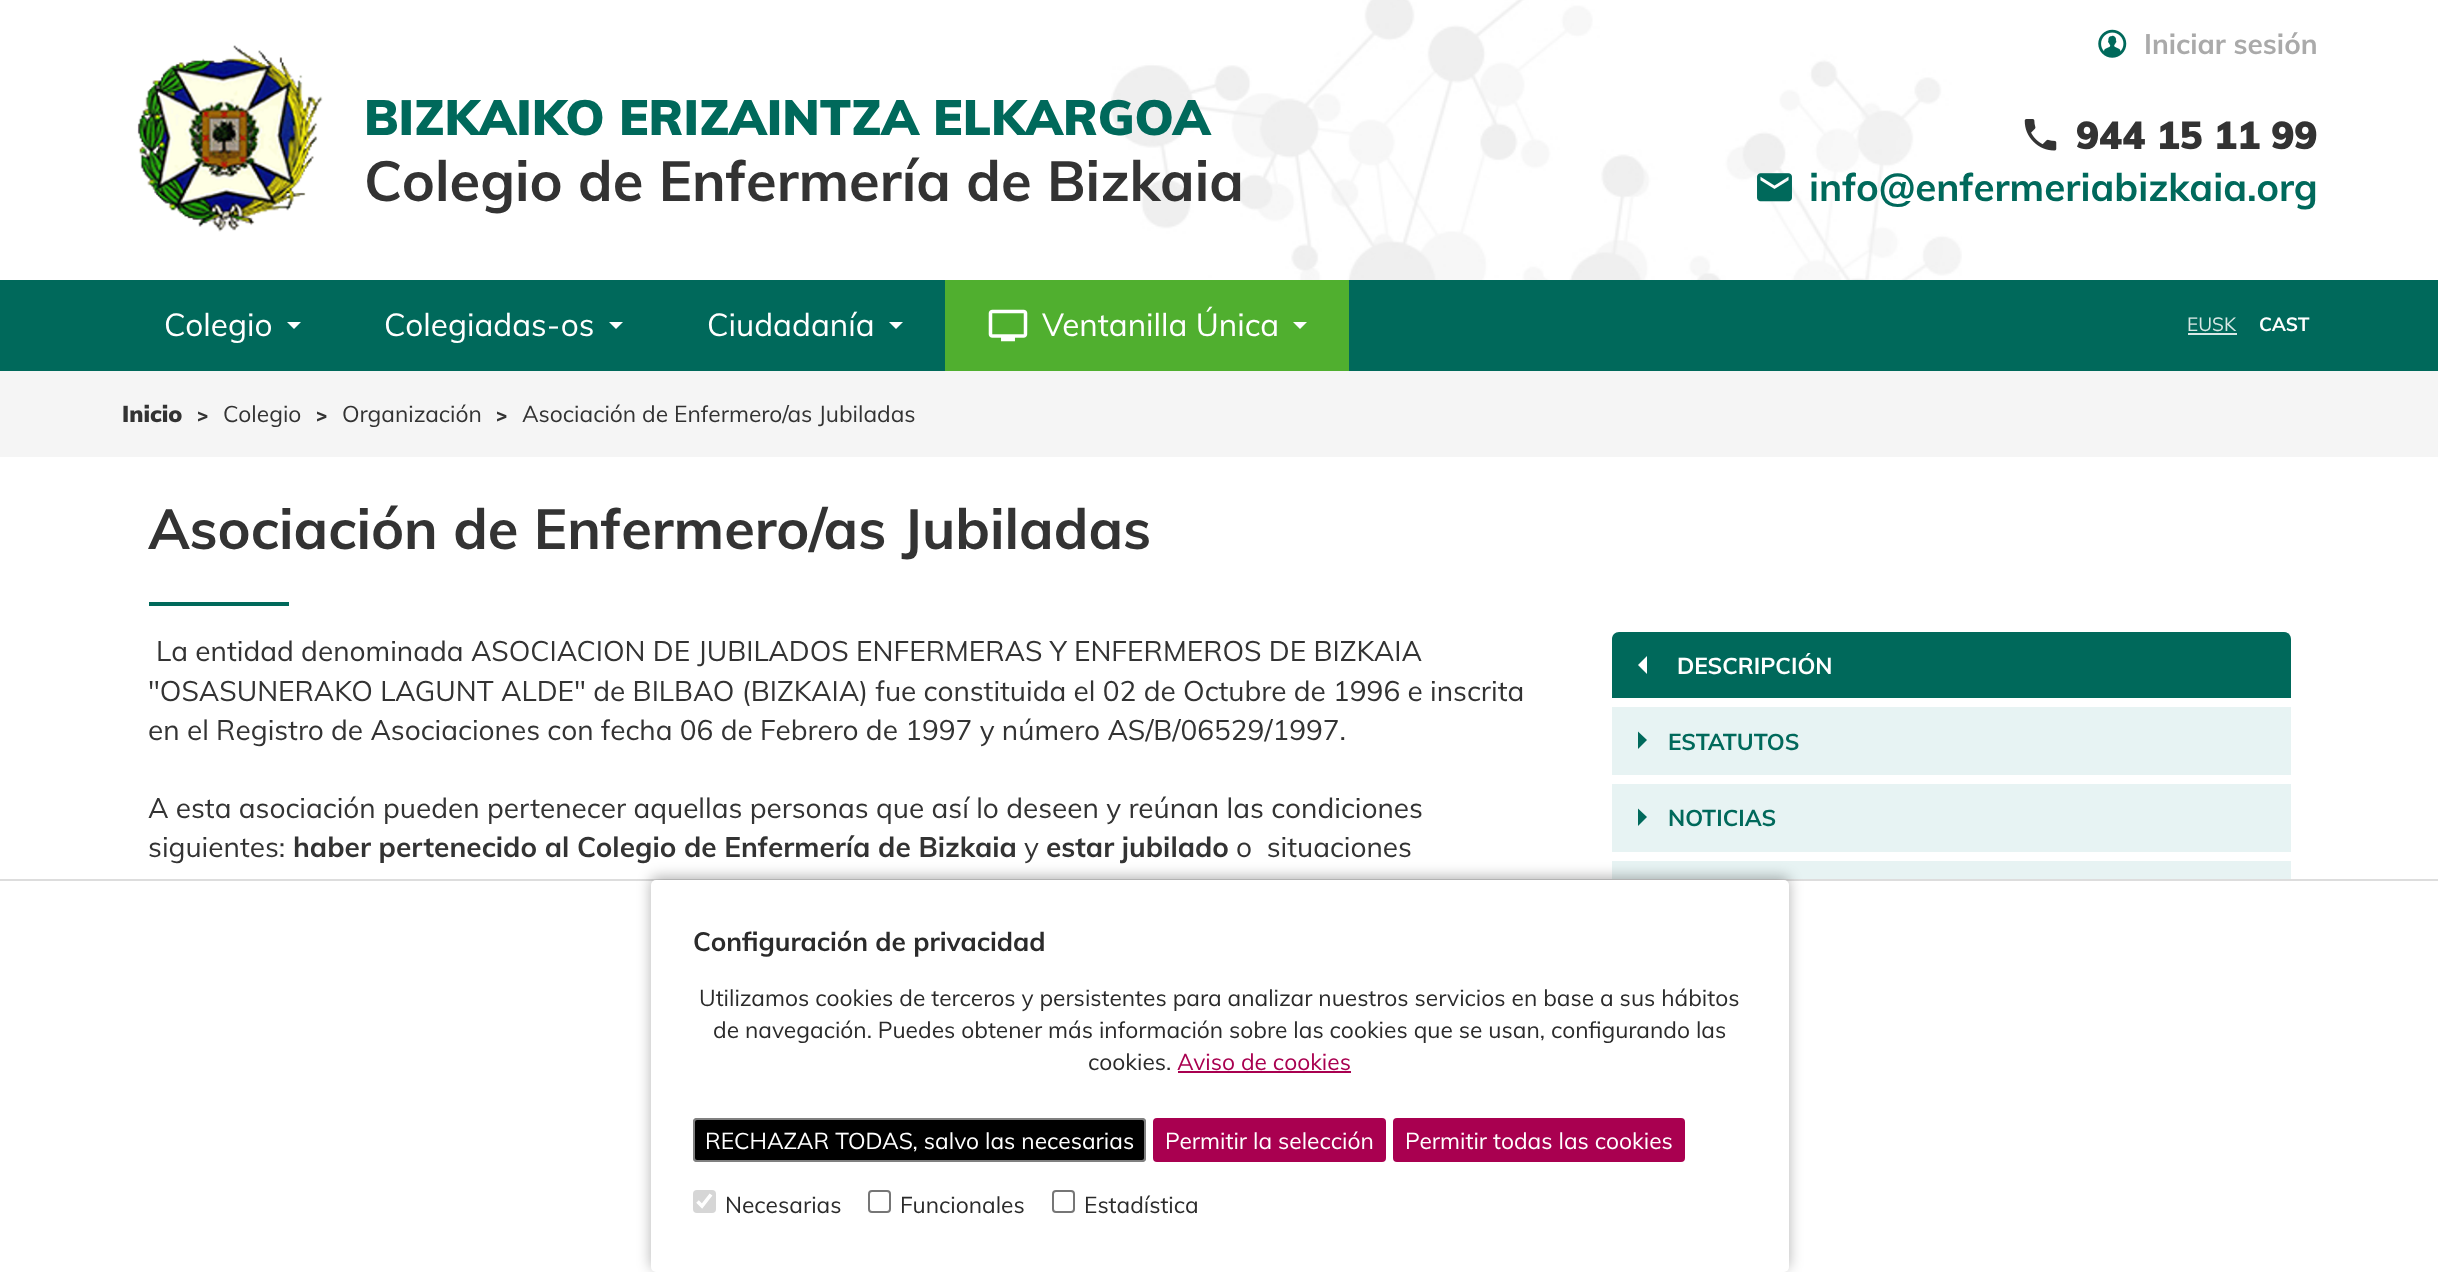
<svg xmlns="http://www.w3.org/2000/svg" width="2438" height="1272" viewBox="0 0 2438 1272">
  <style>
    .t1 { font: bold 28px Muli; fill: #aaa; }
    .t2 { font: 900 49px Muli; fill: #00695b; }
    .t3 { font: bold 56px Muli; fill: #333; }
    .t4 { font: 900 38.5px Muli; fill: #333; }
    .t5 { font: bold 38.5px Muli; fill: #00695b; }
    .t6 { font: 31.5px Muli; fill: #fff; }
    .t7 { font: 19px Muli; fill: #d9e9e6; }
    .t8 { font: bold 19px Muli; fill: #fff; }
    .t9 { font: 900 22.75px Muli; fill: #333; }
    .t10 { font: 900 19px Muli; fill: #333; }
    .t11 { font: 22.75px Muli; fill: #333; }
    .t12 { font: 28px Muli; fill: #333; }
    .t13 { font: bold 28px Muli; fill: #333; }
    .t14 { font: bold 22.75px Muli; fill: #fff; }
    .t15 { font: bold 22.75px Muli; fill: #00695b; }
    .t16 { font: bold 26.25px Muli; fill: #2b2b2b; }
    .t17 { font: 22.75px Muli; fill: #2b2b2b; }
    .t18 { font: 22.75px Muli; fill: #a90050; }
    .t19 { font: 22.75px Muli; fill: #fff; }
  </style>
  <rect width="100%" height="100%" fill="#fff"/>
  <image x="2098" y="29" width="29" height="29" href="images/1.png"/>
  <text x="2144" y="54" class="t1">Iniciar sesión</text>
  <image x="1111" y="0" width="851" height="280" href="images/2.png"/>
  <image x="137" y="45" width="186" height="187" href="images/3.png"/>
  <text x="364" y="135" class="t2">BIZKAIKO ERIZAINTZA ELKARGOA</text>
  <text x="364" y="201" class="t3">Colegio de Enfermería de Bizkaia</text>
  <image x="2024" y="119" width="33" height="32" href="images/4.png"/>
  <text x="2076" y="149" class="t4">944 15 11 99</text>
  <image x="1757" y="173" width="35" height="29" href="images/5.png"/>
  <text x="1809" y="201" class="t5">info@enfermeriabizkaia.org</text>
  <rect x="0" y="280" width="2438" height="91" fill="#00695b"/>
  <text x="164" y="336" class="t6">Colegio</text>
  <path d="M287 322H301L294 329Z" fill="#fff"/>
  <text x="384" y="336" class="t6">Colegiadas-os</text>
  <path d="M609 322H623L616 329Z" fill="#fff"/>
  <text x="707" y="336" class="t6">Ciudadanía</text>
  <path d="M889 322H903L896 329Z" fill="#fff"/>
  <rect x="945" y="280" width="404" height="91" fill="#50af2f"/>
  <image x="988" y="309" width="40" height="33" href="images/6.png"/>
  <text x="1042" y="336" class="t6">Ventanilla Única</text>
  <path d="M1293 322H1307L1300 329Z" fill="#fff"/>
  <text x="2187" y="331" class="t7">EUSK</text>
  <rect x="2188" y="333" width="49" height="2" fill="#d9e9e6"/>
  <text x="2259" y="331" class="t8">CAST</text>
  <rect x="0" y="371" width="2438" height="86" fill="#f5f5f5"/>
  <text x="122" y="422" class="t9">Inicio</text>
  <text x="197" y="422" class="t10">&gt;</text>
  <text x="223" y="422" class="t11">Colegio</text>
  <text x="316" y="422" class="t10">&gt;</text>
  <text x="342" y="422" class="t11">Organización</text>
  <text x="496" y="422" class="t10">&gt;</text>
  <text x="522" y="422" class="t11">Asociación de Enfermero/as Jubiladas</text>
  <text x="148" y="549" class="t3">Asociación de Enfermero/as Jubiladas</text>
  <rect x="149" y="602" width="140" height="4" fill="#00695b"/>
  <text x="156" y="661" class="t12">La entidad denominada ASOCIACION DE JUBILADOS ENFERMERAS Y ENFERMEROS DE BIZKAIA</text>
  <text x="148" y="701" class="t12">"OSASUNERAKO LAGUNT ALDE" de BILBAO (BIZKAIA) fue constituida el 02 de Octubre de 1996 e inscrita</text>
  <text x="148" y="740" class="t12">en el Registro de Asociaciones con fecha 06 de Febrero de 1997 y número AS/B/06529/1997.</text>
  <text x="148" y="818" class="t12">A esta asociación pueden pertenecer aquellas personas que así lo deseen y reúnan las condiciones</text>
  <text x="148" y="857" class="t12">siguientes:</text>
  <text x="293" y="857" class="t13">haber pertenecido al Colegio de Enfermería de Bizkaia</text>
  <text x="1024" y="857" class="t12">y</text>
  <text x="1046" y="857" class="t13">estar jubilado</text>
  <text x="1236" y="857" class="t12" xml:space="preserve">o  situaciones</text>
  <path d="M1619 632H2284C2288 632 2291 635 2291 639V698H1612V639C1612 635 1615 632 1619 632Z" fill="#00695b"/>
  <path d="M1647 656V674L1638 665Z" fill="#fff"/>
  <text x="1677" y="674" class="t14">DESCRIPCIÓN</text>
  <rect x="1612" y="707" width="679" height="68" fill="#e7f3f3"/>
  <path d="M1638 749V731.5L1647 740Z" fill="#00695b"/>
  <text x="1668" y="750" class="t15">ESTATUTOS</text>
  <rect x="1612" y="784" width="679" height="68" fill="#e7f3f3"/>
  <path d="M1638 826V808.5L1647 817Z" fill="#00695b"/>
  <text x="1668" y="826" class="t15">NOTICIAS</text>
  <rect x="1612" y="861" width="679" height="18" fill="#e7f3f3"/>
  <rect x="0" y="879" width="2438" height="2" fill="#ddd"/>
  <rect x="651" y="877" width="1138" height="392" rx="5" fill="#0000004d" filter="blur(7px)"/>
  <rect x="651" y="880" width="1138" height="392" rx="5" fill="#fff"/>
  <text x="693" y="951" class="t16">Configuración de privacidad</text>
  <text x="699" y="1006" class="t17">Utilizamos cookies de terceros y persistentes para analizar nuestros servicios en base a sus hábitos</text>
  <text x="713" y="1038" class="t17">de navegación. Puedes obtener más información sobre las cookies que se usan, configurando las</text>
  <text x="1088" y="1070" class="t17">cookies.</text>
  <text x="1177" y="1070" class="t18">Aviso de cookies</text>
  <rect x="1178" y="1071" width="173" height="2" fill="#a90050"/>
  <rect x="693" y="1118" width="453" height="44" rx="4" fill="#000"/>
  <rect x="694" y="1119" width="451" height="42" rx="3" fill="none" stroke="#ffffff80" stroke-width="2"/>
  <text x="705" y="1149" class="t19">RECHAZAR TODAS, salvo las necesarias</text>
  <rect x="1154" y="1119" width="231" height="42" rx="3" fill="#a90050" stroke="#a90050" stroke-width="2"/>
  <text x="1165" y="1149" class="t19">Permitir la selección</text>
  <rect x="1394" y="1119" width="290" height="42" rx="3" fill="#a90050" stroke="#a90050" stroke-width="2"/>
  <text x="1405" y="1149" class="t19">Permitir todas las cookies</text>
  <rect x="693" y="1190" width="23" height="23" rx="4" fill="#d6d6d6"/>
  <path d="M697.5 1201.5L702 1206L711 1194.5" fill="none" stroke="#fff" stroke-width="3.6"/>
  <text x="725" y="1213" class="t17">Necesarias</text>
  <rect x="869" y="1191" width="21" height="21" rx="3" fill="none" stroke="#767676" stroke-width="2"/>
  <text x="900" y="1213" class="t17">Funcionales</text>
  <rect x="1053" y="1191" width="21" height="21" rx="3" fill="none" stroke="#767676" stroke-width="2"/>
  <text x="1084" y="1213" class="t17">Estadística</text>
</svg>
